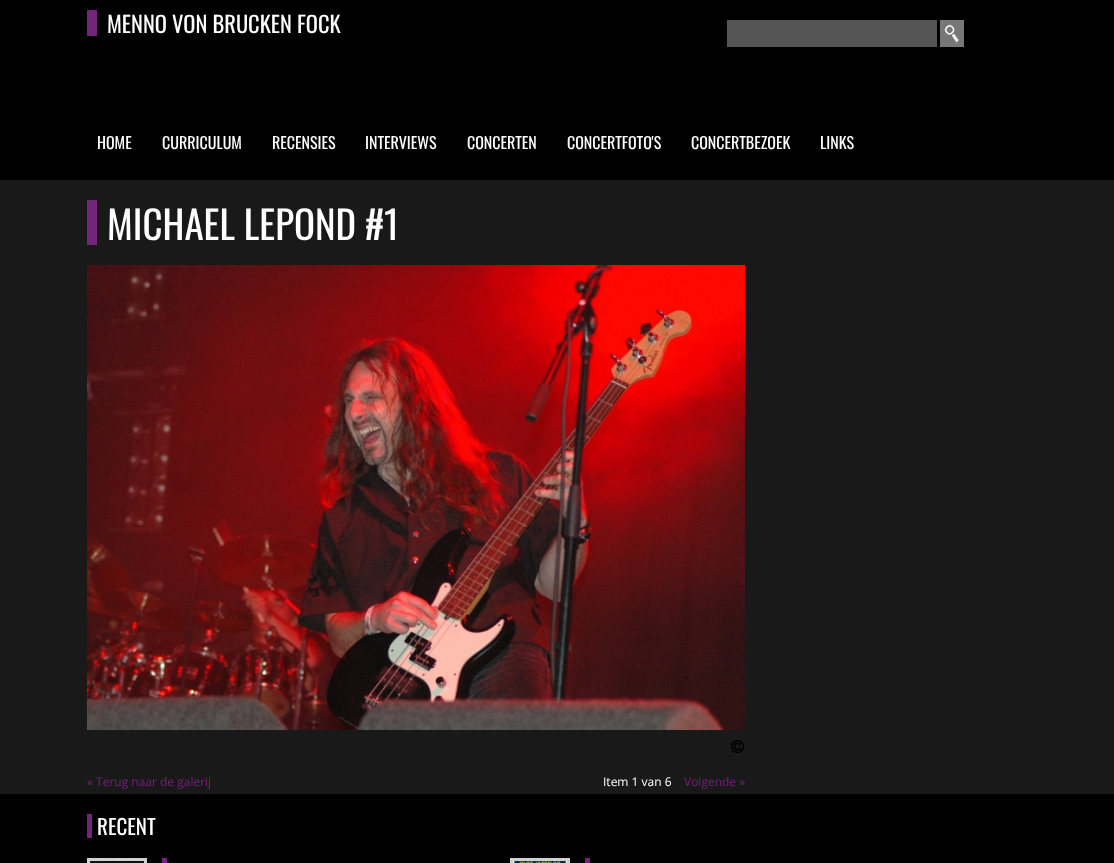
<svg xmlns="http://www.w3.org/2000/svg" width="1114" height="863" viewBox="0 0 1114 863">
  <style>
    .t1 { font: 22.5px Oswald; fill: #fff; }
    .t2 { font: 16px Oswald; fill: #fff; }
    .t3 { font: 39px Oswald; fill: #fff; }
    .t4 { font: 12px Open Sans; fill: #76207e; }
    .t5 { font: 12px Open Sans; fill: #fff; }
    .t6 { font: 21px Oswald; fill: #fff; }
  </style>
  <rect width="100%" height="100%" fill="#191919"/>
  <rect x="0" y="0" width="1114" height="180" fill="#000"/>
  <rect x="87" y="10" width="10" height="26" fill="#74247b"/>
  <text x="107" y="33" class="t1">MENNO VON BRUCKEN FOCK</text>
  <rect x="727" y="20" width="210" height="27" fill="#555"/>
  <rect x="940" y="20" width="24" height="27" fill="#777"/>
  <image x="943" y="24" width="16" height="20" href="images/1.png"/>
  <text x="97" y="149" class="t2">HOME</text>
  <text x="162" y="149" class="t2">CURRICULUM</text>
  <text x="272" y="149" class="t2">RECENSIES</text>
  <text x="365" y="149" class="t2">INTERVIEWS</text>
  <text x="467" y="149" class="t2">CONCERTEN</text>
  <text x="567" y="149" class="t2">CONCERTFOTO'S</text>
  <text x="691" y="149" class="t2">CONCERTBEZOEK</text>
  <text x="820" y="149" class="t2">LINKS</text>
  <rect x="87" y="200" width="10" height="45" fill="#74247b"/>
  <text x="107" y="240" class="t3">MICHAEL LEPOND #1</text>
  <image x="87" y="265" width="658" height="465" href="images/2.png"/>
  <image x="731" y="740" width="13" height="13" href="images/3.png"/>
  <text x="87" y="786" class="t4">« Terug naar de galerij</text>
  <text x="603" y="786" class="t5">Item 1 van 6</text>
  <text x="684" y="786" class="t4">Volgende »</text>
  <rect x="0" y="794" width="1114" height="69" fill="#000"/>
  <rect x="87" y="814" width="5" height="24" fill="#74247b"/>
  <text x="97" y="835" class="t6">RECENT</text>
  <rect x="88.5" y="859.5" width="57" height="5" fill="none" stroke="#d1d1d1" stroke-width="3"/>
  <image x="90" y="861" width="54" height="2" href="images/4.png"/>
  <rect x="162" y="858" width="5" height="5" fill="#74247b"/>
  <rect x="511.5" y="859.5" width="57" height="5" fill="none" stroke="#d1d1d1" stroke-width="3"/>
  <image x="513" y="861" width="54" height="2" href="images/5.png"/>
  <rect x="585" y="858" width="5" height="5" fill="#74247b"/>
</svg>
